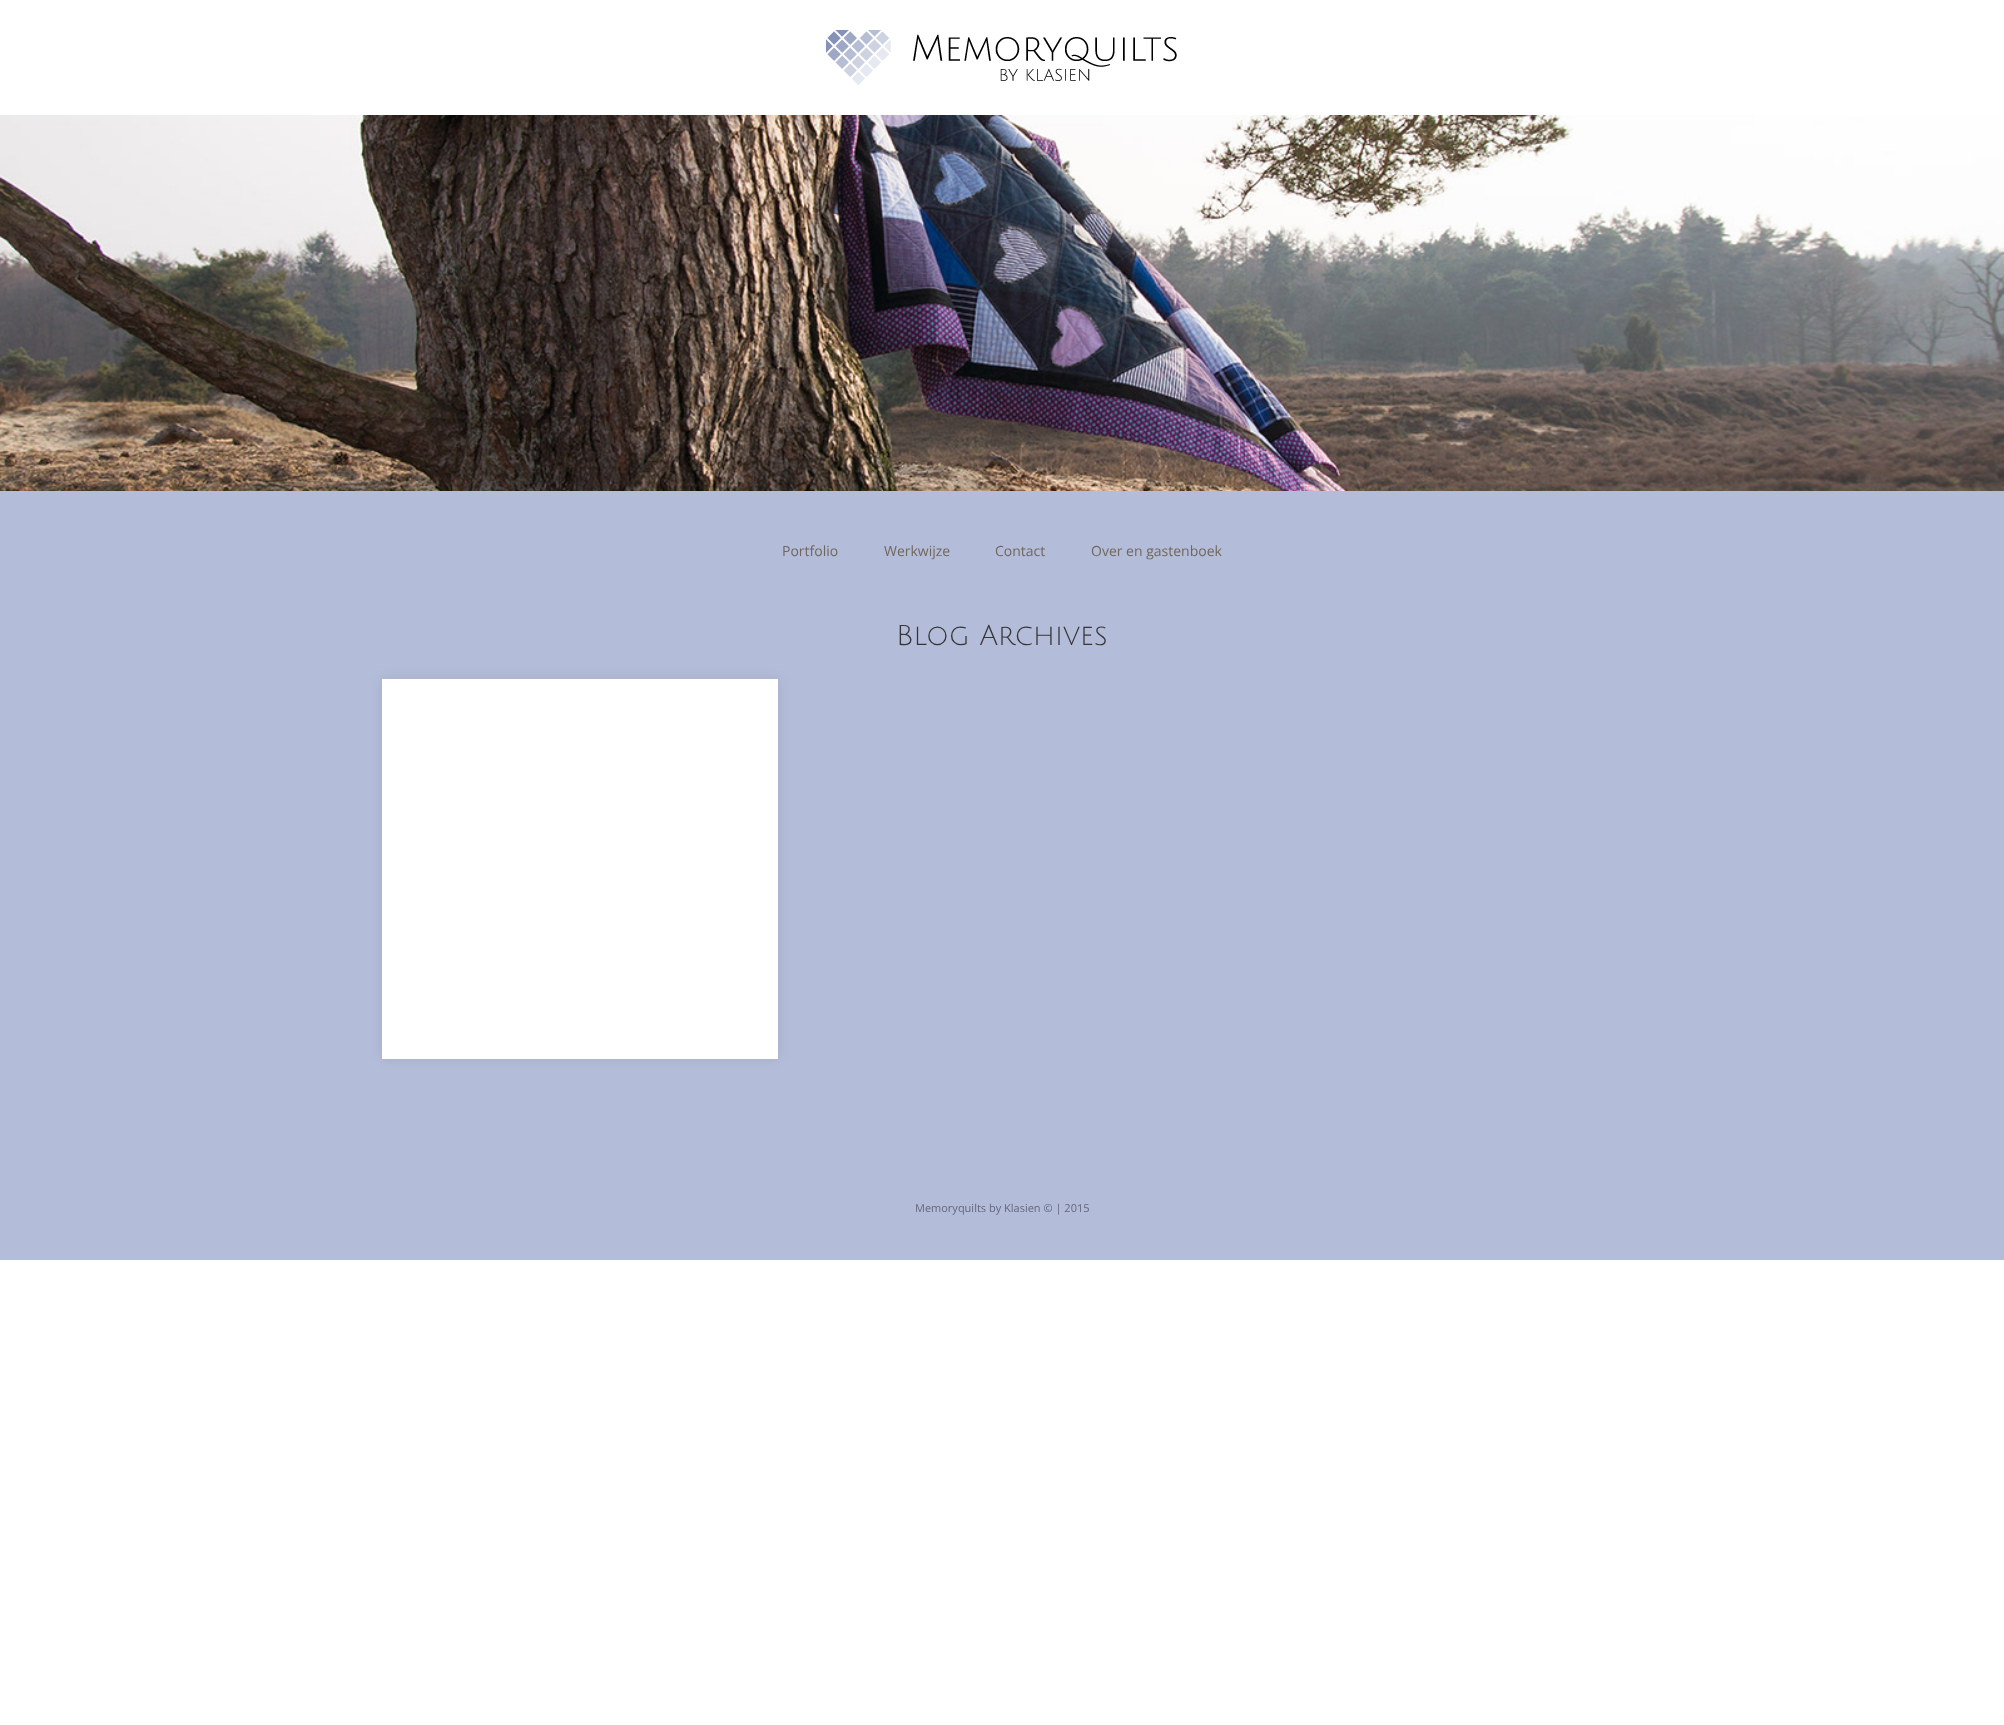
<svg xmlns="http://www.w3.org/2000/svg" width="2004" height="1725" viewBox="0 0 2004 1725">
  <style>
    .t1 { font: 14px Open Sans; fill: #72675e; }
    .t2 { font: 28px Julius Sans One; fill: #363636; }
    .t3 { font: 11px Open Sans; fill: #636780; }
  </style>
  <rect width="100%" height="100%" fill="#fff"/>
  <image x="826" y="30" width="351" height="55" href="images/1.png"/>
  <image x="0" y="115" width="2004" height="376" href="images/2.png"/>
  <rect x="0" y="491" width="2004" height="769" fill="#b3bcd8"/>
  <text x="782" y="556" class="t1">Portfolio</text>
  <text x="884" y="556" class="t1">Werkwijze</text>
  <text x="995" y="556" class="t1">Contact</text>
  <text x="1091" y="556" class="t1">Over en gastenboek</text>
  <text x="896" y="645" class="t2">Blog Archives</text>
  <rect x="382" y="679" width="396" height="380" fill="#00000012" filter="blur(6.5px)"/>
  <rect x="382" y="679" width="396" height="380" fill="#fff"/>
  <text x="915" y="1212" class="t3">Memoryquilts by Klasien © | 2015</text>
</svg>
